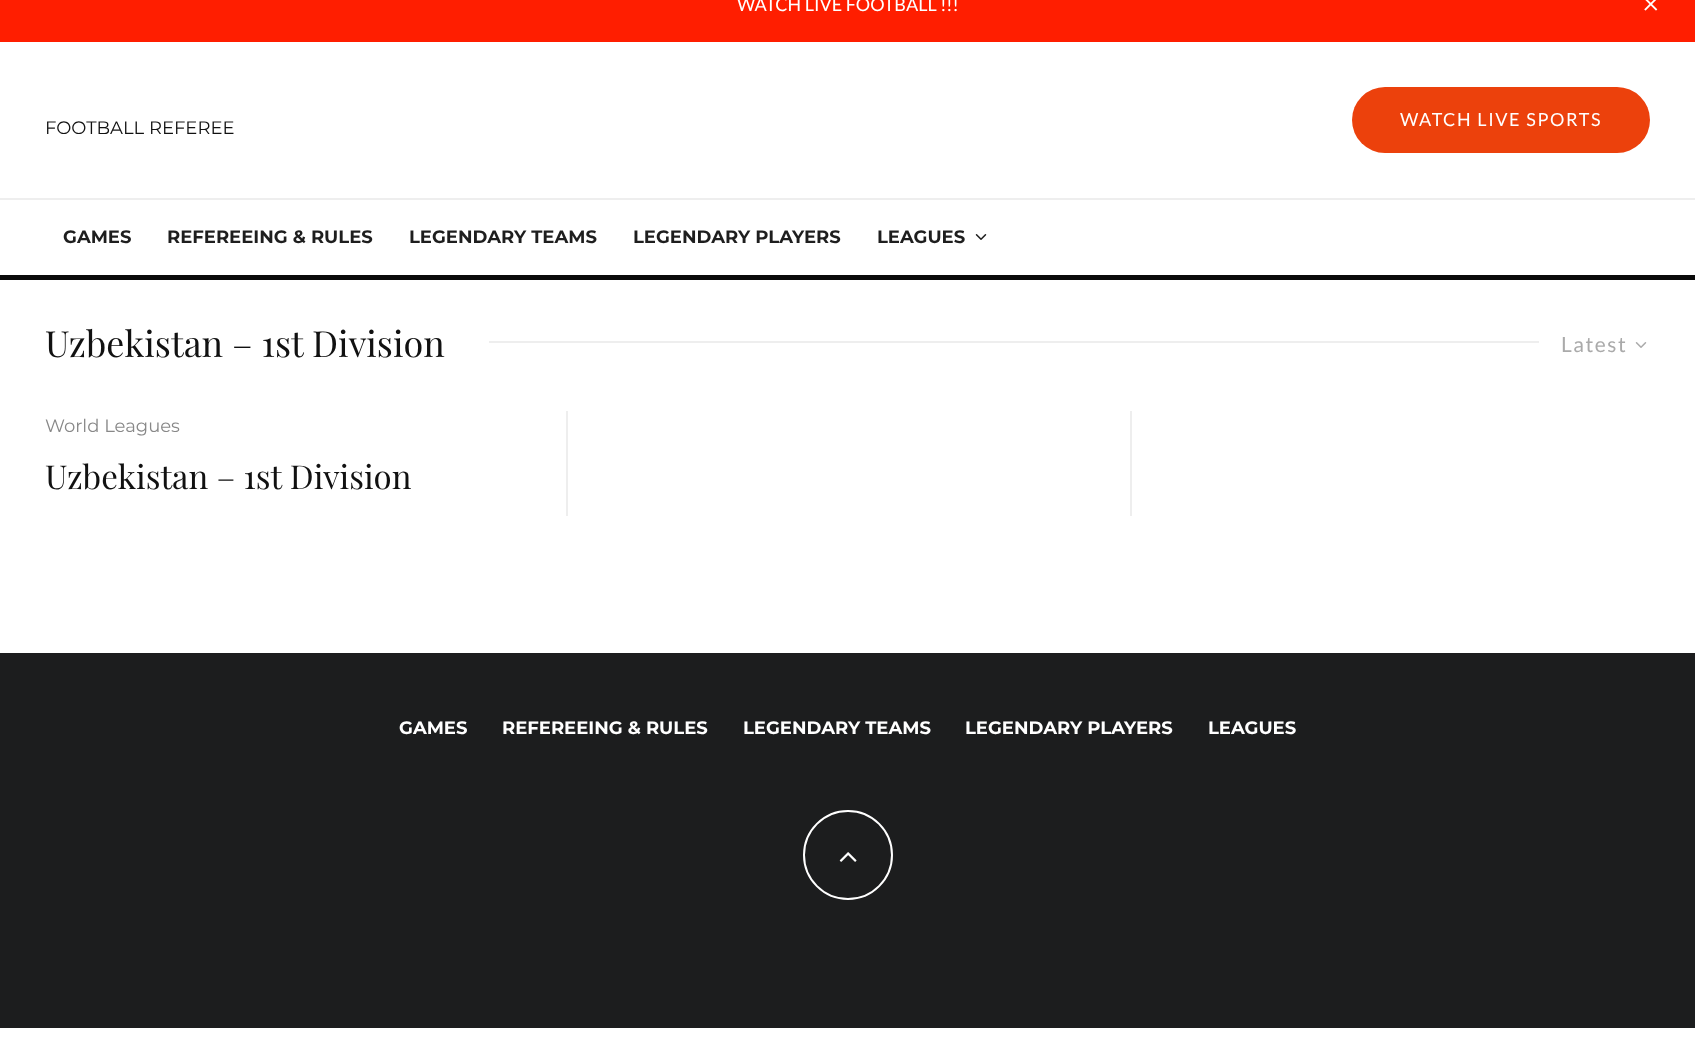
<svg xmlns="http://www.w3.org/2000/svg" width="1695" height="1054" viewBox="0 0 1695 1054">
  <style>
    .t1 { font: 18px Lato; fill: #fff; }
    .t2 { font: 18px Montserrat; fill: #111; }
    .t3 { font: 18px Lato; letter-spacing: 1.6px; fill: #fff; }
    .t4 { font: bold 18px Montserrat; fill: #1e1e1e; }
    .t5 { font: 36px Playfair Display; fill: #111; }
    .t6 { font: 21px Lato; letter-spacing: 1.5px; fill: #aaa; }
    .t7 { font: 18px Montserrat; fill: #888; }
    .t8 { font: 33px Playfair Display; fill: #111; }
    .t9 { font: bold 18px Montserrat; fill: #fff; }
  </style>
  <rect width="100%" height="100%" fill="#fff"/>
  <rect x="0" y="0" width="1695" height="42" fill="#ff1e00"/>
  <text x="737" y="11" class="t1">WATCH LIVE FOOTBALL !!!</text>
  <image x="1644" y="0" width="14" height="11" href="images/1.png"/>
  <text x="45" y="134" class="t2">FOOTBALL REFEREE</text>
  <rect x="1352" y="87" width="298" height="66" rx="33" fill="#ec410c"/>
  <text x="1400" y="126" class="t3">WATCH LIVE SPORTS</text>
  <rect x="0" y="198" width="1695" height="2" fill="#eee"/>
  <rect x="0" y="275" width="1695" height="5" fill="#0a0a0a"/>
  <text x="63" y="243" class="t4">GAMES</text>
  <text x="167" y="243" class="t4">REFEREEING &amp; RULES</text>
  <text x="409" y="243" class="t4">LEGENDARY TEAMS</text>
  <text x="633" y="243" class="t4">LEGENDARY PLAYERS</text>
  <text x="877" y="243" class="t4">LEAGUES</text>
  <image x="975" y="234" width="12" height="6" href="images/2.png"/>
  <text x="45" y="357" class="t5">Uzbekistan – 1st Division</text>
  <rect x="489" y="341" width="1050" height="2" fill="#eee"/>
  <text x="1561" y="352" class="t6">Latest</text>
  <image x="1635" y="342" width="12" height="6" href="images/3.png"/>
  <text x="45" y="432" class="t7">World Leagues</text>
  <text x="45" y="489" class="t8">Uzbekistan – 1st Division</text>
  <rect x="566" y="411" width="2" height="105" fill="#eee"/>
  <rect x="1130" y="411" width="2" height="105" fill="#eee"/>
  <rect x="0" y="653" width="1695" height="375" fill="#1c1d1e"/>
  <text x="399" y="734" class="t9">GAMES</text>
  <text x="502" y="734" class="t9">REFEREEING &amp; RULES</text>
  <text x="743" y="734" class="t9">LEGENDARY TEAMS</text>
  <text x="965" y="734" class="t9">LEGENDARY PLAYERS</text>
  <text x="1208" y="734" class="t9">LEAGUES</text>
  <circle cx="848" cy="855" r="44" fill="none" stroke="#fff" stroke-width="2"/>
  <image x="839" y="852" width="18" height="10" href="images/4.png"/>
</svg>
